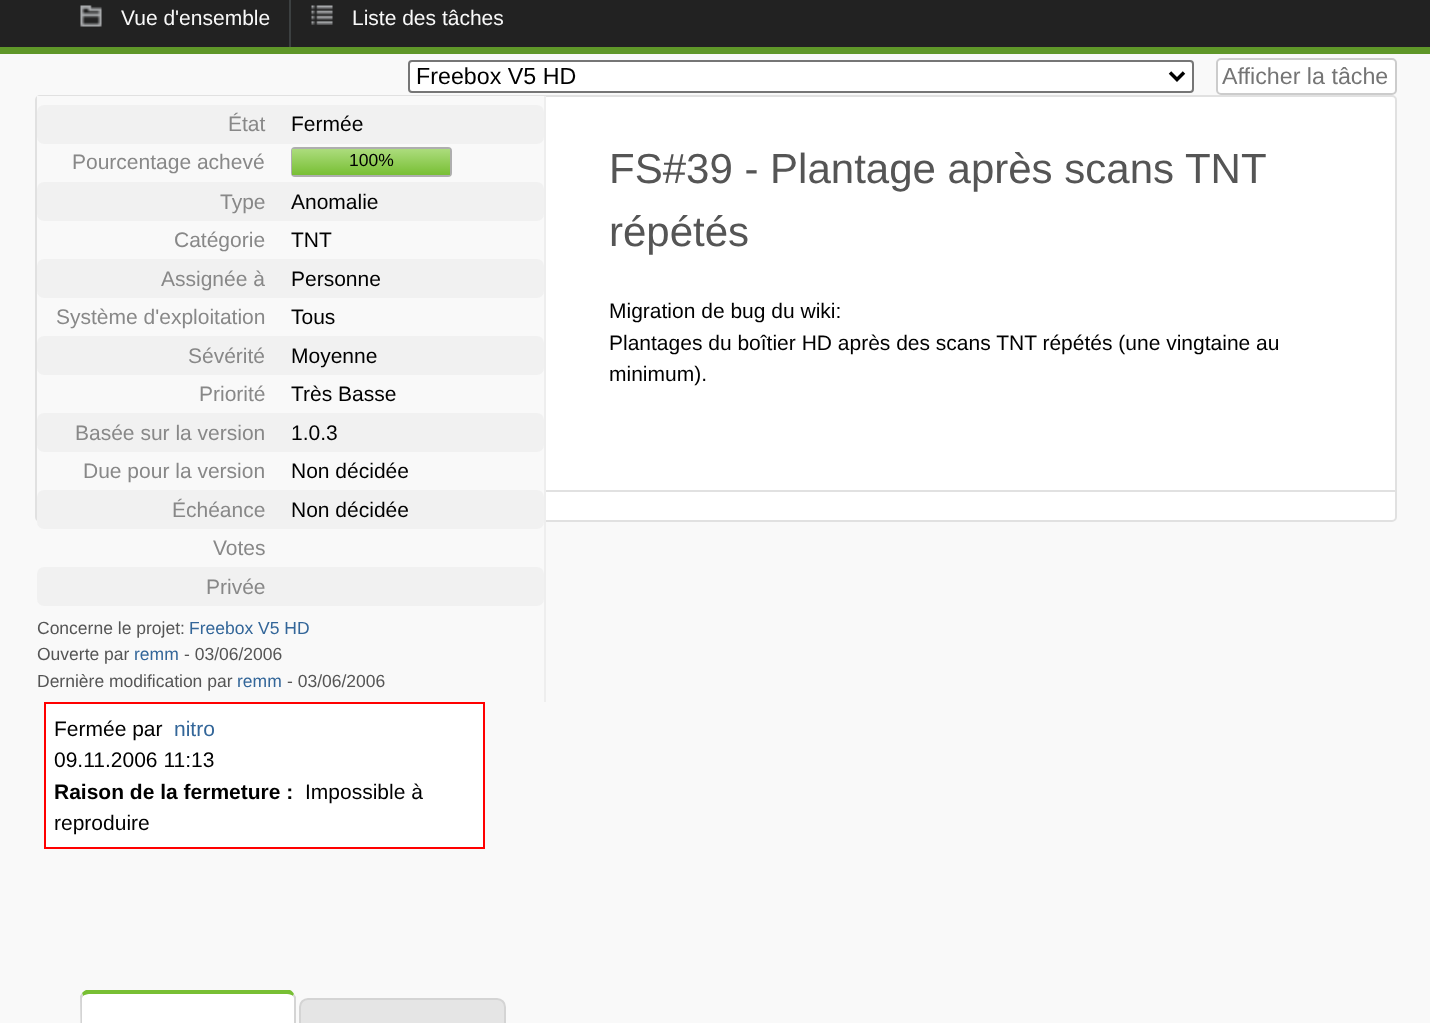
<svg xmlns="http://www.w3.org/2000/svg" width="1430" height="1023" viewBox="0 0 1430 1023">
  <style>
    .t1 { font: 21px Liberation Sans; fill: #f9f9f9; }
    .t2 { font: 23.25px Liberation Sans; fill: #000; }
    .t3 { font: 23.25px Liberation Sans; fill: #757575; }
    .t4 { font: 21px Liberation Sans; fill: #888; }
    .t5 { font: 21px Liberation Sans; fill: #000; }
    .t6 { font: 17.5px Liberation Sans; fill: #000; }
    .t7 { font: 17.5px Liberation Sans; fill: #555; }
    .t8 { font: 17.5px Liberation Sans; fill: #369; }
    .t9 { font: 42px Liberation Sans; fill: #555; }
    .t10 { font: 21px Liberation Sans; fill: #369; }
    .t11 { font: bold 21px Liberation Sans; fill: #000; }
  </style>
  <defs>
    <linearGradient id="g1" gradientUnits="userSpaceOnUse" x1="371" y1="149" x2="371" y2="175"><stop offset="0" stop-color="#acdc7d"/><stop offset="1" stop-color="#78bf34"/></linearGradient>
  </defs>
  <rect width="100%" height="100%" fill="#f9f9f9"/>
  <rect x="0" y="0" width="1430" height="47" fill="#222"/>
  <rect x="0" y="47" width="1430" height="7" fill="#5f9729"/>
  <image x="80" y="5" width="22" height="22" href="images/1.png"/>
  <text x="121" y="25" class="t1">Vue d'ensemble</text>
  <image x="311" y="5" width="22" height="20" href="images/2.png"/>
  <rect x="289" y="0" width="2" height="47" fill="#3c4041"/>
  <text x="352" y="25" class="t1">Liste des tâches</text>
  <rect x="409" y="61" width="784" height="31" rx="3" fill="#fff" stroke="#767676" stroke-width="2"/>
  <path d="M1170 72.5L1177 79.5L1184 72.5" fill="none" stroke="#000" stroke-width="3.5"/>
  <text x="416" y="84" class="t2">Freebox V5 HD</text>
  <rect x="1217" y="59" width="179" height="35" rx="4" fill="#fff" stroke="#ccc" stroke-width="2"/>
  <text x="1222" y="84" class="t3">Afficher la tâche</text>
  <rect x="36" y="96" width="1360" height="425" rx="4" fill="#fff" stroke="#e1e1e1" stroke-width="2"/>
  <rect x="37" y="96" width="507" height="426" fill="#f9f9f9"/>
  <rect x="544" y="96" width="2" height="606" fill="#eee"/>
  <rect x="37" y="105" width="507" height="39" rx="7" fill="#f1f1f1"/>
  <text x="228" y="131" class="t4">État</text>
  <text x="291" y="131" class="t5">Fermée</text>
  <text x="72" y="169" class="t4">Pourcentage achevé</text>
  <rect x="292" y="148" width="159" height="28" rx="3" fill="none" stroke="#aeaeae" stroke-width="2"/>
  <rect x="292" y="149" width="158" height="26" fill="url(#g1)"/>
  <text x="349" y="166" class="t6">100%</text>
  <rect x="37" y="182" width="507" height="39" rx="7" fill="#f1f1f1"/>
  <text x="220" y="209" class="t4">Type</text>
  <text x="291" y="209" class="t5">Anomalie</text>
  <text x="174" y="247" class="t4">Catégorie</text>
  <text x="291" y="247" class="t5">TNT</text>
  <rect x="37" y="259" width="507" height="39" rx="7" fill="#f1f1f1"/>
  <text x="161" y="286" class="t4">Assignée à</text>
  <text x="291" y="286" class="t5">Personne</text>
  <text x="56" y="324" class="t4">Système d'exploitation</text>
  <text x="291" y="324" class="t5">Tous</text>
  <rect x="37" y="336" width="507" height="39" rx="7" fill="#f1f1f1"/>
  <text x="188" y="363" class="t4">Sévérité</text>
  <text x="291" y="363" class="t5">Moyenne</text>
  <text x="199" y="401" class="t4">Priorité</text>
  <text x="291" y="401" class="t5">Très Basse</text>
  <rect x="37" y="413" width="507" height="39" rx="7" fill="#f1f1f1"/>
  <text x="75" y="440" class="t4">Basée sur la version</text>
  <text x="291" y="440" class="t5">1.0.3</text>
  <text x="83" y="478" class="t4">Due pour la version</text>
  <text x="291" y="478" class="t5">Non décidée</text>
  <rect x="37" y="490" width="507" height="39" rx="7" fill="#f1f1f1"/>
  <text x="172" y="517" class="t4">Échéance</text>
  <text x="291" y="517" class="t5">Non décidée</text>
  <text x="213" y="555" class="t4">Votes</text>
  <rect x="37" y="567" width="507" height="39" rx="7" fill="#f1f1f1"/>
  <text x="206" y="594" class="t4">Privée</text>
  <text x="37" y="634" class="t7">Concerne le projet:</text>
  <text x="189" y="634" class="t8">Freebox V5 HD</text>
  <text x="37" y="660" class="t7">Ouverte par</text>
  <text x="134" y="660" class="t8">remm</text>
  <text x="184" y="660" class="t7">- 03/06/2006</text>
  <text x="37" y="687" class="t7">Dernière modification par</text>
  <text x="237" y="687" class="t8">remm</text>
  <text x="287" y="687" class="t7">- 03/06/2006</text>
  <text x="609" y="183" class="t9">FS#39 - Plantage après scans TNT</text>
  <text x="609" y="246" class="t9">répétés</text>
  <text x="609" y="318" class="t5">Migration de bug du wiki:</text>
  <text x="609" y="350" class="t5">Plantages du boîtier HD après des scans TNT répétés (une vingtaine au</text>
  <text x="609" y="381" class="t5">minimum).</text>
  <rect x="546" y="490" width="849" height="2" fill="#e1e1e1"/>
  <rect x="45" y="703" width="439" height="145" fill="#fff" stroke="#f00" stroke-width="2"/>
  <text x="54" y="736" class="t5">Fermée par</text>
  <text x="174" y="736" class="t10">nitro</text>
  <text x="54" y="767" class="t5">09.11.2006 11:13</text>
  <text x="54" y="799" class="t11">Raison de la fermeture :</text>
  <text x="305" y="799" class="t5">Impossible à</text>
  <text x="54" y="830" class="t5">reproduire</text>
  <path d="M89 994H287C291 994 294 996 294 999V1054H82V999C82 996 85 994 89 994Z" fill="#fff"/>
  <path d="M89 994C87 994 84 995 83 996L82 993C83 992 84 991 86 990H290C292 991 293 992 294 994L293 996C292 995 290 994 287 994Z" fill="#78bf34"/>
  <path d="M296 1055L294 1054V999C294 998 294 997 293 996L294 994L296 997Z" fill="#d4d4d4"/>
  <path d="M80 996L82 993L83 996L82 998V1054L81 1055Z" fill="#d4d4d4"/>
  <path d="M308 999H497C501.5 999 505 1002.5 505 1007V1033H300V1007C300 1002.5 303.5 999 308 999Z" fill="#e5e5e5" stroke="#d4d4d4" stroke-width="2"/>
</svg>
